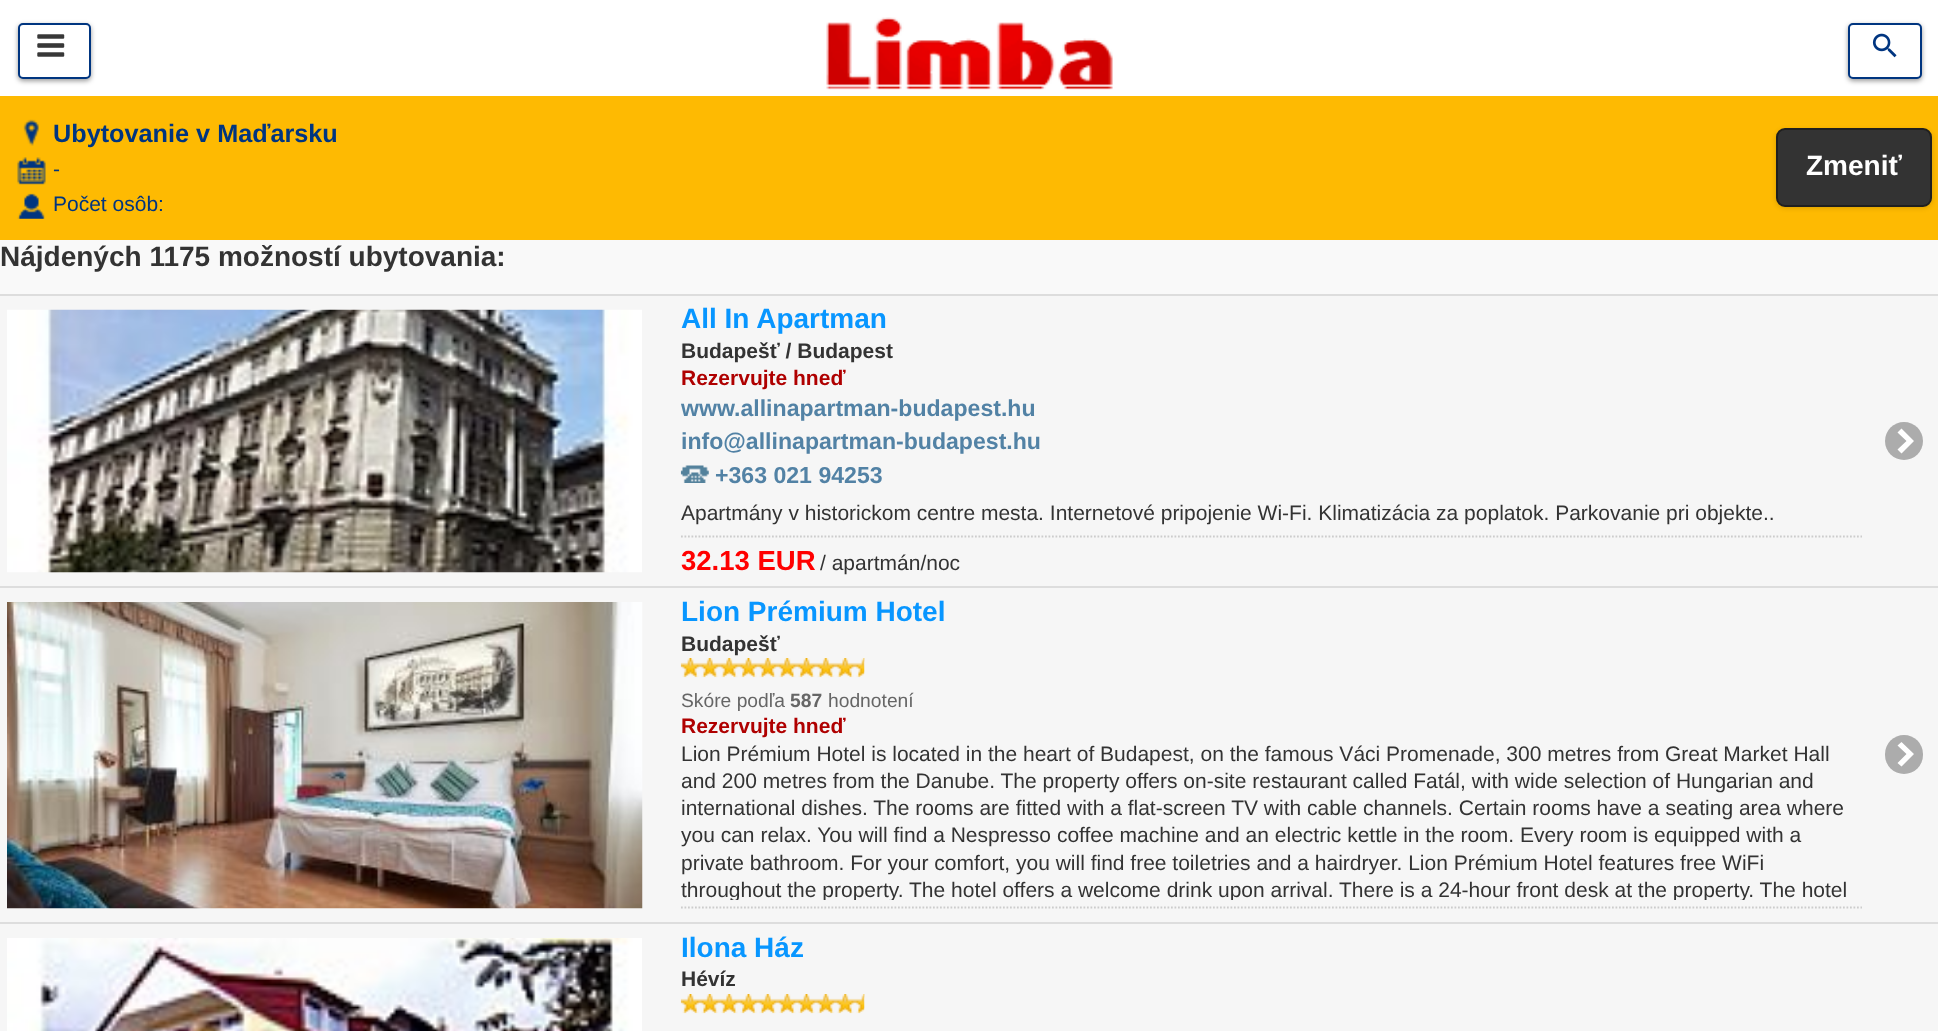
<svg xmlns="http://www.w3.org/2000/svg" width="1938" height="1031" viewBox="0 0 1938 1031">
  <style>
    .t1 { font: bold 25.25px Liberation Sans; fill: #003580; }
    .t2 { font: 21px Liberation Sans; fill: #003580; }
    .t3 { font: bold 28px Liberation Sans; fill: #fff; }
    .t4 { font: bold 28px Liberation Sans; fill: #333; }
    .t5 { font: bold 28px Liberation Sans; fill: #0896ff; }
    .t6 { font: bold 21px Liberation Sans; fill: #333; }
    .t7 { font: bold 21px Liberation Sans; fill: #af0000; }
    .t8 { font: bold 23.1px Liberation Sans; fill: #5282a5; }
    .t9 { font: 21px Liberation Sans; fill: #333; }
    .t10 { font: bold 27.5px Liberation Sans; fill: #f00; }
    .t11 { font: 19.25px Liberation Sans; fill: #666; }
    .t12 { font: bold 19.25px Liberation Sans; fill: #666; }
  </style>
  <defs>
    <clipPath id="clip1"><rect x="681" y="742" width="1181" height="158"/></clipPath>
  </defs>
  <rect width="100%" height="100%" fill="#f9f9f9"/>
  <rect x="0" y="0" width="1938" height="96" fill="#fff"/>
  <rect x="18" y="25" width="73" height="56" rx="5" fill="#00000066" filter="blur(2.5px)"/>
  <rect x="19" y="24" width="71" height="54" rx="4" fill="#fff" stroke="#003580" stroke-width="2"/>
  <image x="37" y="34" width="28" height="23" href="images/1.png"/>
  <image x="826" y="17" width="287" height="73" href="images/2.png"/>
  <rect x="1848" y="25" width="74" height="56" rx="5" fill="#00000066" filter="blur(2.5px)"/>
  <rect x="1849" y="24" width="72" height="54" rx="4" fill="#fff" stroke="#003580" stroke-width="2"/>
  <image x="1872" y="33" width="25" height="25" href="images/3.png"/>
  <rect x="0" y="96" width="1938" height="144" fill="#feba02"/>
  <image x="23" y="119" width="16" height="27" href="images/4.png"/>
  <text x="53" y="142" class="t1">Ubytovanie v Maďarsku</text>
  <image x="17" y="157" width="29" height="28" href="images/5.png"/>
  <text x="53" y="176" class="t2">-</text>
  <image x="17" y="193" width="28" height="26" href="images/6.png"/>
  <text x="53" y="211" class="t2">Počet osôb:</text>
  <rect x="1776" y="130" width="156" height="78" rx="9" fill="#00000026" filter="blur(2.5px)"/>
  <rect x="1777" y="129" width="154" height="77" rx="8" fill="#333" stroke="#1f1f1f" stroke-width="2"/>
  <text x="1806" y="175" class="t3">Zmeniť</text>
  <text x="0" y="266" class="t4">Nájdených 1175 možností ubytovania:</text>
  <rect x="0" y="296" width="1938" height="290" fill="#f6f6f6"/>
  <rect x="0" y="294" width="1938" height="2" fill="#ddd"/>
  <image x="7" y="309" width="635" height="264" href="images/7.png"/>
  <text x="681" y="328" class="t5">All In Apartman</text>
  <text x="681" y="358" class="t6">Budapešť / Budapest</text>
  <text x="681" y="385" class="t7">Rezervujte hneď</text>
  <text x="681" y="416" class="t8">www.allinapartman-budapest.hu</text>
  <text x="681" y="449" class="t8">info@allinapartman-budapest.hu</text>
  <image x="680" y="465" width="29" height="18" href="images/8.png"/>
  <text x="715" y="483" class="t8">+363 021 94253</text>
  <text x="681" y="520" class="t9">Apartmány v historickom centre mesta. Internetové pripojenie Wi-Fi. Klimatizácia za poplatok. Parkovanie pri objekte..</text>
  <path d="M681 536.5H1862" fill="none" stroke="#ccc" stroke-width="1.8" stroke-dasharray="1.75 1.75"/>
  <text x="681" y="570" class="t10">32.13 EUR</text>
  <text x="820" y="570" class="t9">/ apartmán/noc</text>
  <circle cx="1904" cy="441" r="19" fill="#acacac"/>
  <path d="M1897.5 432.5L1906.5 441L1897.5 449.5L1901.5 453.5L1914 441L1901.5 428.5Z" fill="#fff"/>
  <rect x="0" y="588" width="1938" height="334" fill="#f6f6f6"/>
  <rect x="0" y="586" width="1938" height="2" fill="#ddd"/>
  <image x="7" y="602" width="636" height="307" href="images/9.png"/>
  <text x="681" y="621" class="t5">Lion Prémium Hotel</text>
  <text x="681" y="651" class="t6">Budapešť</text>
  <image x="680" y="658" width="185" height="20" href="images/10.png"/>
  <text x="681" y="707" class="t11">Skóre podľa</text>
  <text x="790" y="707" class="t12">587</text>
  <text x="828" y="707" class="t11">hodnotení</text>
  <text x="681" y="733" class="t7">Rezervujte hneď</text>
  <text x="681" y="761" class="t9">Lion Prémium Hotel is located in the heart of Budapest, on the famous Váci Promenade, 300 metres from Great Market Hall</text>
  <text x="681" y="788" class="t9">and 200 metres from the Danube. The property offers on-site restaurant called Fatál, with wide selection of Hungarian and</text>
  <text x="681" y="815" class="t9">international dishes. The rooms are fitted with a flat-screen TV with cable channels. Certain rooms have a seating area where</text>
  <text x="681" y="842" class="t9">you can relax. You will find a Nespresso coffee machine and an electric kettle in the room. Every room is equipped with a</text>
  <text x="681" y="870" class="t9">private bathroom. For your comfort, you will find free toiletries and a hairdryer. Lion Prémium Hotel features free WiFi</text>
  <g clip-path="url(#clip1)">
    <text x="681" y="897" class="t9">throughout the property. The hotel offers a welcome drink upon arrival. There is a 24-hour front desk at the property. The hotel</text>
  </g>
  <path d="M681 907.5H1862" fill="none" stroke="#ccc" stroke-width="1.8" stroke-dasharray="1.75 1.75"/>
  <rect x="1885" y="735" width="38" height="39" rx="19" fill="#acacac"/>
  <path d="M1897.5 745.5L1906.5 754L1897.5 763L1901.5 766.5L1914 754L1901.5 742Z" fill="#fff"/>
  <rect x="0" y="924" width="1938" height="107" fill="#f6f6f6"/>
  <rect x="0" y="922" width="1938" height="2" fill="#ddd"/>
  <image x="7" y="938" width="635" height="93" href="images/11.png"/>
  <text x="681" y="957" class="t5">Ilona Ház</text>
  <text x="681" y="986" class="t6">Hévíz</text>
  <image x="680" y="994" width="185" height="20" href="images/10.png"/>
</svg>
